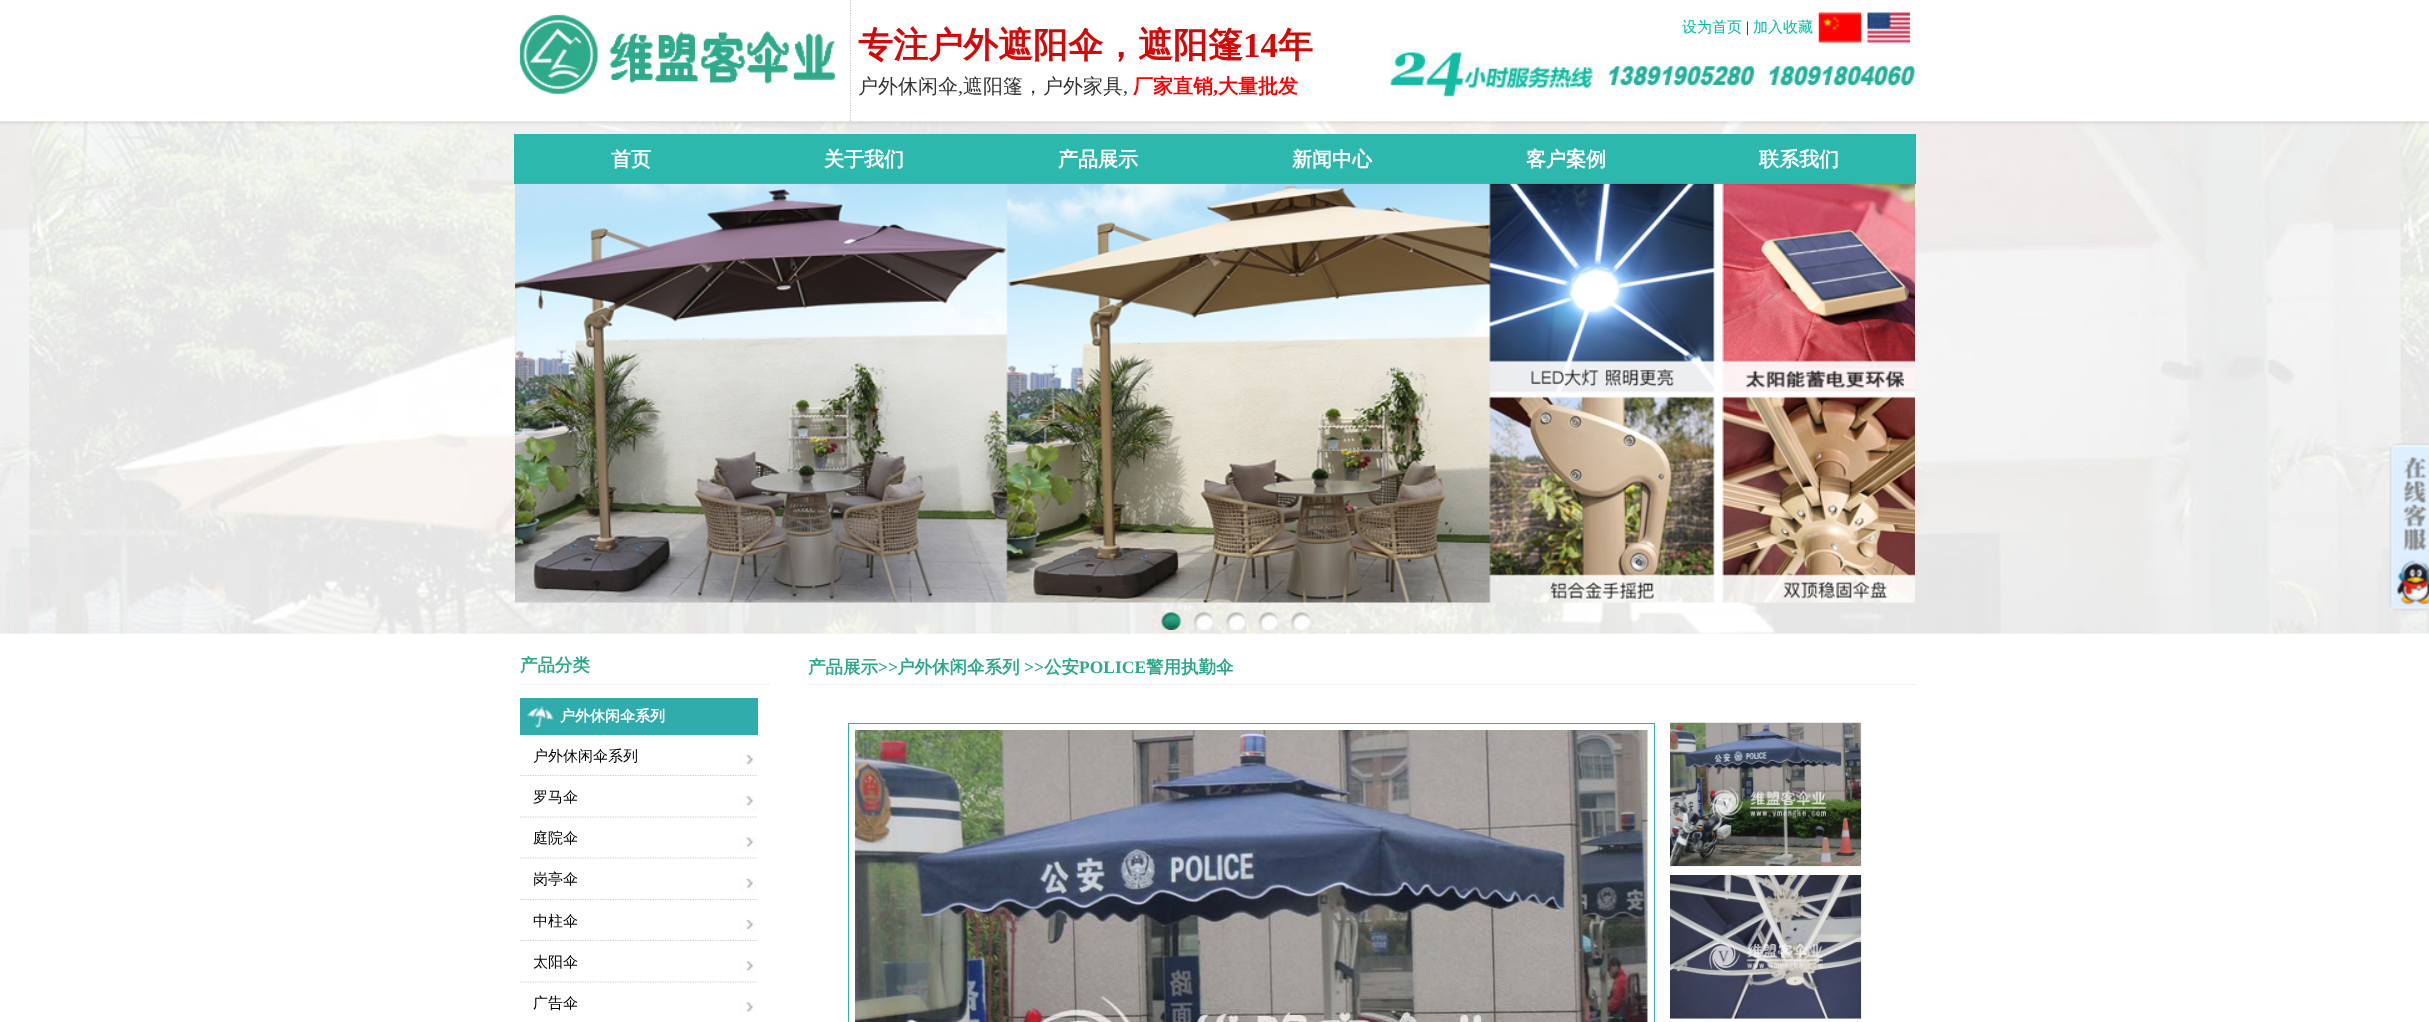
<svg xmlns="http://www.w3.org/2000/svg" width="2429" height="1022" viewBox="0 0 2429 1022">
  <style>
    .t1 { font: bold 35px WenQuanYi Zen Hei; fill: #d50808; }
    .t2 { font: bold 35px Liberation Serif; fill: #d50808; }
    .t3 { font: 500 20px WenQuanYi Zen Hei; fill: #343434; }
    .t4 { font: 20px Liberation Serif; fill: #343434; }
    .t5 { font: bold 20px WenQuanYi Zen Hei; fill: #f00; }
    .t6 { font: bold 20px Liberation Serif; fill: #f00; }
    .t7 { font: 500 15px WenQuanYi Zen Hei; fill: #00bca3; }
    .t8 { font: 15px Liberation Serif; fill: #000; }
    .t9 { font: bold 20px WenQuanYi Zen Hei; fill: #fff; }
    .t10 { font: bold 17.5px WenQuanYi Zen Hei; fill: #2ca98a; }
    .t11 { font: bold 15px WenQuanYi Zen Hei; fill: #fff; }
    .t12 { font: 500 15px WenQuanYi Zen Hei; fill: #000; }
    .t13 { font: bold 17.5px Liberation Serif; fill: #2ca98a; }
  </style>
  <rect width="100%" height="100%" fill="#fff"/>
  <image x="519" y="14" width="317" height="80" href="images/1.png"/>
  <path d="M850.5 0V121" fill="none" stroke="#ccc" stroke-width="1.2" stroke-dasharray="1.25 1.25"/>
  <text x="858" y="57" class="t1">专注户外遮阳伞，遮阳篷</text>
  <text x="1243" y="57" class="t2">14</text>
  <text x="1278" y="57" class="t1">年</text>
  <text x="858" y="93" class="t3">户外休闲伞</text>
  <text x="958" y="93" class="t4">,</text>
  <text x="963" y="93" class="t3">遮阳篷，户外家具</text>
  <text x="1123" y="93" class="t4">,</text>
  <text x="1133" y="93" class="t5">厂家直销</text>
  <text x="1213" y="93" class="t6">,</text>
  <text x="1218" y="93" class="t5">大量批发</text>
  <text x="1682" y="32" class="t7">设为首页</text>
  <text x="1746" y="32" class="t8">|</text>
  <text x="1753" y="32" class="t7">加入收藏</text>
  <image x="1818" y="12" width="44" height="31" href="images/2.png"/>
  <image x="1867" y="12" width="43" height="31" href="images/3.png"/>
  <image x="1390" y="49" width="526" height="48" href="images/4.png"/>
  <image x="0" y="121" width="2429" height="513" href="images/5.png"/>
  <rect x="514" y="134" width="1402" height="50" fill="#2db8ad"/>
  <text x="611" y="166" class="t9">首页</text>
  <text x="824" y="166" class="t9">关于我们</text>
  <text x="1058" y="166" class="t9">产品展示</text>
  <text x="1292" y="166" class="t9">新闻中心</text>
  <text x="1526" y="166" class="t9">客户案例</text>
  <text x="1759" y="166" class="t9">联系我们</text>
  <image x="515" y="183" width="1400" height="420" href="images/6.png"/>
  <image x="1161" y="612" width="21" height="18" href="images/7.png"/>
  <image x="1193" y="612" width="21" height="18" href="images/8.png"/>
  <image x="1226" y="612" width="21" height="18" href="images/9.png"/>
  <image x="1258" y="612" width="21" height="18" href="images/10.png"/>
  <image x="1291" y="612" width="21" height="18" href="images/11.png"/>
  <image x="2389" y="443" width="40" height="168" href="images/12.png"/>
  <rect x="520" y="684" width="250" height="1" fill="#f0f0f0"/>
  <text x="520" y="671" class="t10">产品分类</text>
  <rect x="520" y="698" width="238" height="37" fill="#30acad"/>
  <image x="520" y="701" width="40" height="30" href="images/13.png"/>
  <text x="560" y="721" class="t11">户外休闲伞系列</text>
  <image x="739" y="754" width="17" height="16" href="images/14.png"/>
  <path d="M520 775.5H757.5" fill="none" stroke="#ccc" stroke-width="1.2" stroke-dasharray="1.25 1.25"/>
  <text x="533" y="761" class="t12">户外休闲伞系列</text>
  <image x="739" y="796" width="17" height="15" href="images/15.png"/>
  <path d="M520 817H757.5" fill="none" stroke="#ccc" stroke-width="1.2" stroke-dasharray="1.25 1.25"/>
  <text x="533" y="802" class="t12">罗马伞</text>
  <image x="739" y="837" width="18" height="15" href="images/16.png"/>
  <path d="M520 858H757.5" fill="none" stroke="#ccc" stroke-width="1.2" stroke-dasharray="1.25 1.25"/>
  <text x="533" y="843" class="t12">庭院伞</text>
  <image x="739" y="878" width="17" height="16" href="images/17.png"/>
  <path d="M520 899.5H757.5" fill="none" stroke="#ccc" stroke-width="1.2" stroke-dasharray="1.25 1.25"/>
  <text x="533" y="884" class="t12">岗亭伞</text>
  <image x="739" y="919" width="17" height="16" href="images/14.png"/>
  <path d="M520 940.5H757.5" fill="none" stroke="#ccc" stroke-width="1.2" stroke-dasharray="1.25 1.25"/>
  <text x="533" y="926" class="t12">中柱伞</text>
  <image x="739" y="961" width="17" height="15" href="images/18.png"/>
  <path d="M520 982H757.5" fill="none" stroke="#ccc" stroke-width="1.2" stroke-dasharray="1.25 1.25"/>
  <text x="533" y="967" class="t12">太阳伞</text>
  <image x="739" y="1002" width="18" height="15" href="images/16.png"/>
  <text x="533" y="1008" class="t12">广告伞</text>
  <rect x="808" y="684" width="1108" height="1" fill="#f0f0f0"/>
  <text x="808" y="673" class="t10">产品展示</text>
  <text x="878" y="673" class="t13">&gt;&gt;</text>
  <text x="897" y="673" class="t10">户外休闲伞系列</text>
  <text x="1024" y="673" class="t13">&gt;&gt;</text>
  <text x="1044" y="673" class="t10">公安</text>
  <text x="1079" y="673" class="t13">POLICE</text>
  <text x="1146" y="673" class="t10">警用执勤伞</text>
  <rect x="848.5" y="723.5" width="806" height="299" fill="none" stroke="#33adae"/>
  <image x="855" y="730" width="793" height="292" href="images/19.png"/>
  <image x="1670" y="722" width="192" height="145" href="images/20.png"/>
  <image x="1670" y="875" width="192" height="144" href="images/21.png"/>
</svg>
